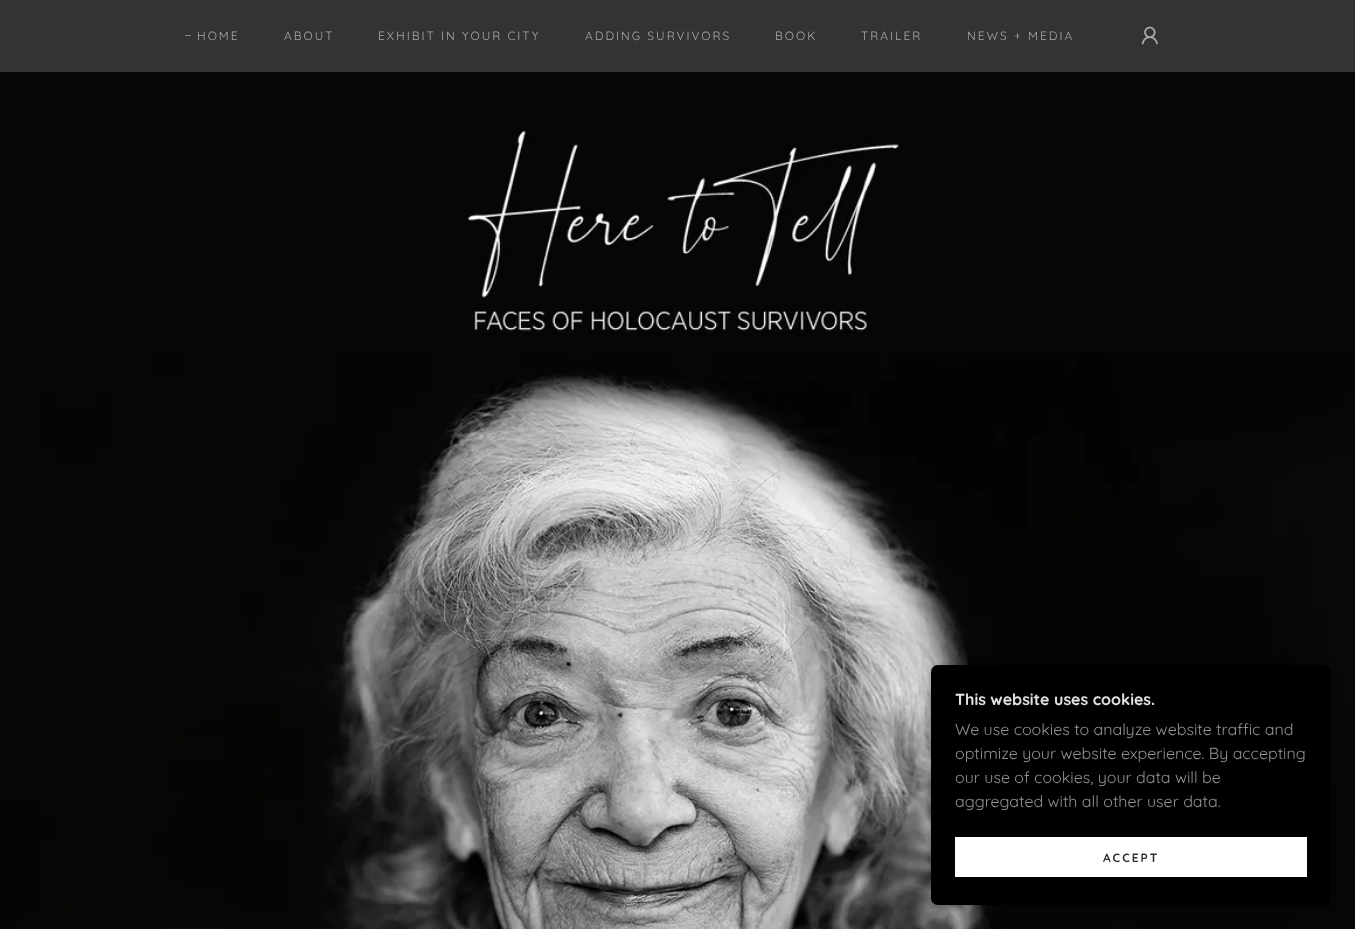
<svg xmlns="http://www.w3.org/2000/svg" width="1355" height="929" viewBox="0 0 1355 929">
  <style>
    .t1 { font: 12px Quicksand; letter-spacing: 2px; fill: #a9a9a9; }
    .t2 { font: bold 16px Quicksand; fill: #e2e2e2; }
    .t3 { font: 16px Quicksand; fill: #919191; }
    .t4 { font: bold 12px Quicksand; letter-spacing: 2px; fill: #303030; }
  </style>
  <rect width="100%" height="100%" fill="#333"/>
  <rect x="185" y="35" width="6" height="1" fill="#898989"/>
  <text x="197" y="40" class="t1">HOME</text>
  <text x="284" y="40" class="t1">ABOUT</text>
  <text x="378" y="40" class="t1">EXHIBIT IN YOUR CITY</text>
  <text x="585" y="40" class="t1">ADDING SURVIVORS</text>
  <text x="775" y="40" class="t1">BOOK</text>
  <text x="861" y="40" class="t1">TRAILER</text>
  <text x="967" y="40" class="t1">NEWS + MEDIA</text>
  <image x="1141" y="26" width="17" height="19" href="images/1.png"/>
  <image x="0" y="72" width="1355" height="857" href="images/2.png"/>
  <rect x="931" y="667" width="400" height="240" rx="7" fill="#0000004d" filter="blur(3px)"/>
  <rect x="931" y="665" width="400" height="240" rx="7" fill="#000"/>
  <text x="955" y="705" class="t2">This website uses cookies.</text>
  <text x="955" y="735" class="t3">We use cookies to analyze website traffic and</text>
  <text x="955" y="759" class="t3">optimize your website experience. By accepting</text>
  <text x="955" y="783" class="t3">our use of cookies, your data will be</text>
  <text x="955" y="807" class="t3">aggregated with all other user data.</text>
  <rect x="955" y="837" width="352" height="40" fill="#fff"/>
  <text x="1103" y="862" class="t4">ACCEPT</text>
</svg>
